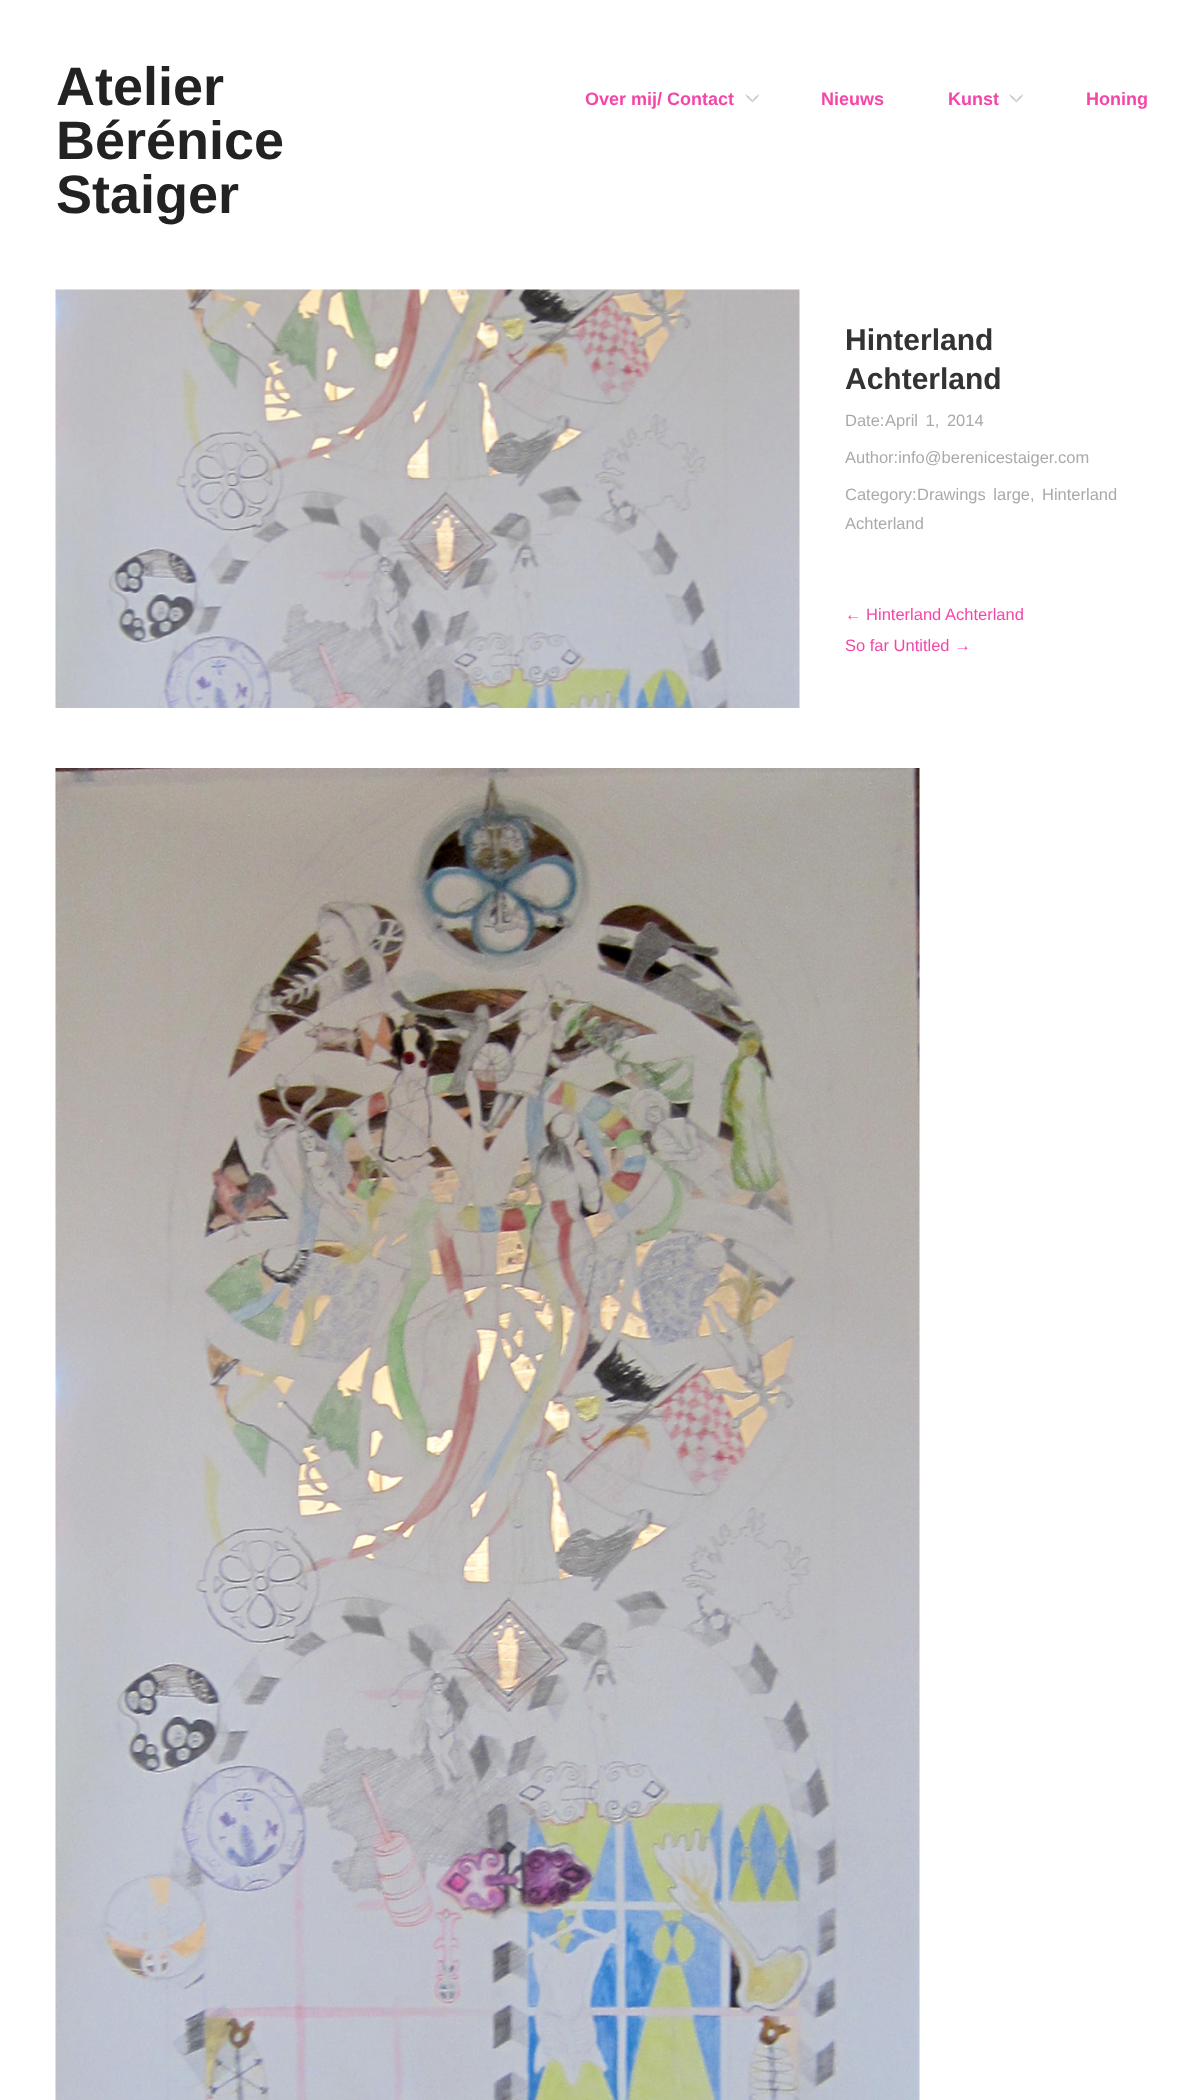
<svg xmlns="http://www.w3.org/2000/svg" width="1203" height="2100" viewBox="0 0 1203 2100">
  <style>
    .t1 { font: bold 54px Liberation Sans; fill: #222; }
    .t2 { font: bold 18px Liberation Sans; fill: #f446a9; }
    .t3 { font: bold 30px Liberation Sans; fill: #333; }
    .t4 { font: 16.5px Liberation Sans; fill: #aaa; }
    .t5 { font: 16.5px Liberation Sans; fill: #f446a9; }
  </style>
  <rect width="100%" height="100%" fill="#fff"/>
  <text x="56" y="105" class="t1">Atelier</text>
  <text x="56" y="159" class="t1">Bérénice</text>
  <text x="56" y="213" class="t1">Staiger</text>
  <image x="745" y="94" width="14" height="8" href="images/1.png"/>
  <text x="585" y="105" class="t2">Over mij/ Contact</text>
  <text x="821" y="105" class="t2">Nieuws</text>
  <image x="1009" y="94" width="14" height="8" href="images/2.png"/>
  <text x="948" y="105" class="t2">Kunst</text>
  <text x="1086" y="105" class="t2">Honing</text>
  <image x="55" y="289" width="745" height="419" href="images/3.png"/>
  <text x="845" y="350" class="t3">Hinterland</text>
  <text x="845" y="389" class="t3">Achterland</text>
  <text x="845" y="426" class="t4">Date:</text>
  <text x="885" y="426" word-spacing="3" class="t4">April 1, 2014</text>
  <text x="845" y="463" class="t4">Author:info@berenicestaiger.com</text>
  <text x="845" y="500" class="t4">Category:</text>
  <text x="917" y="500" word-spacing="3" class="t4">Drawings large</text>
  <text x="1030" y="500" class="t4">,</text>
  <text x="1042" y="500" class="t4">Hinterland</text>
  <text x="845" y="529" class="t4">Achterland</text>
  <text x="845" y="620" class="t5">← Hinterland Achterland</text>
  <text x="845" y="651" class="t5">So far Untitled →</text>
  <image x="55" y="768" width="865" height="1332" href="images/4.png"/>
</svg>
